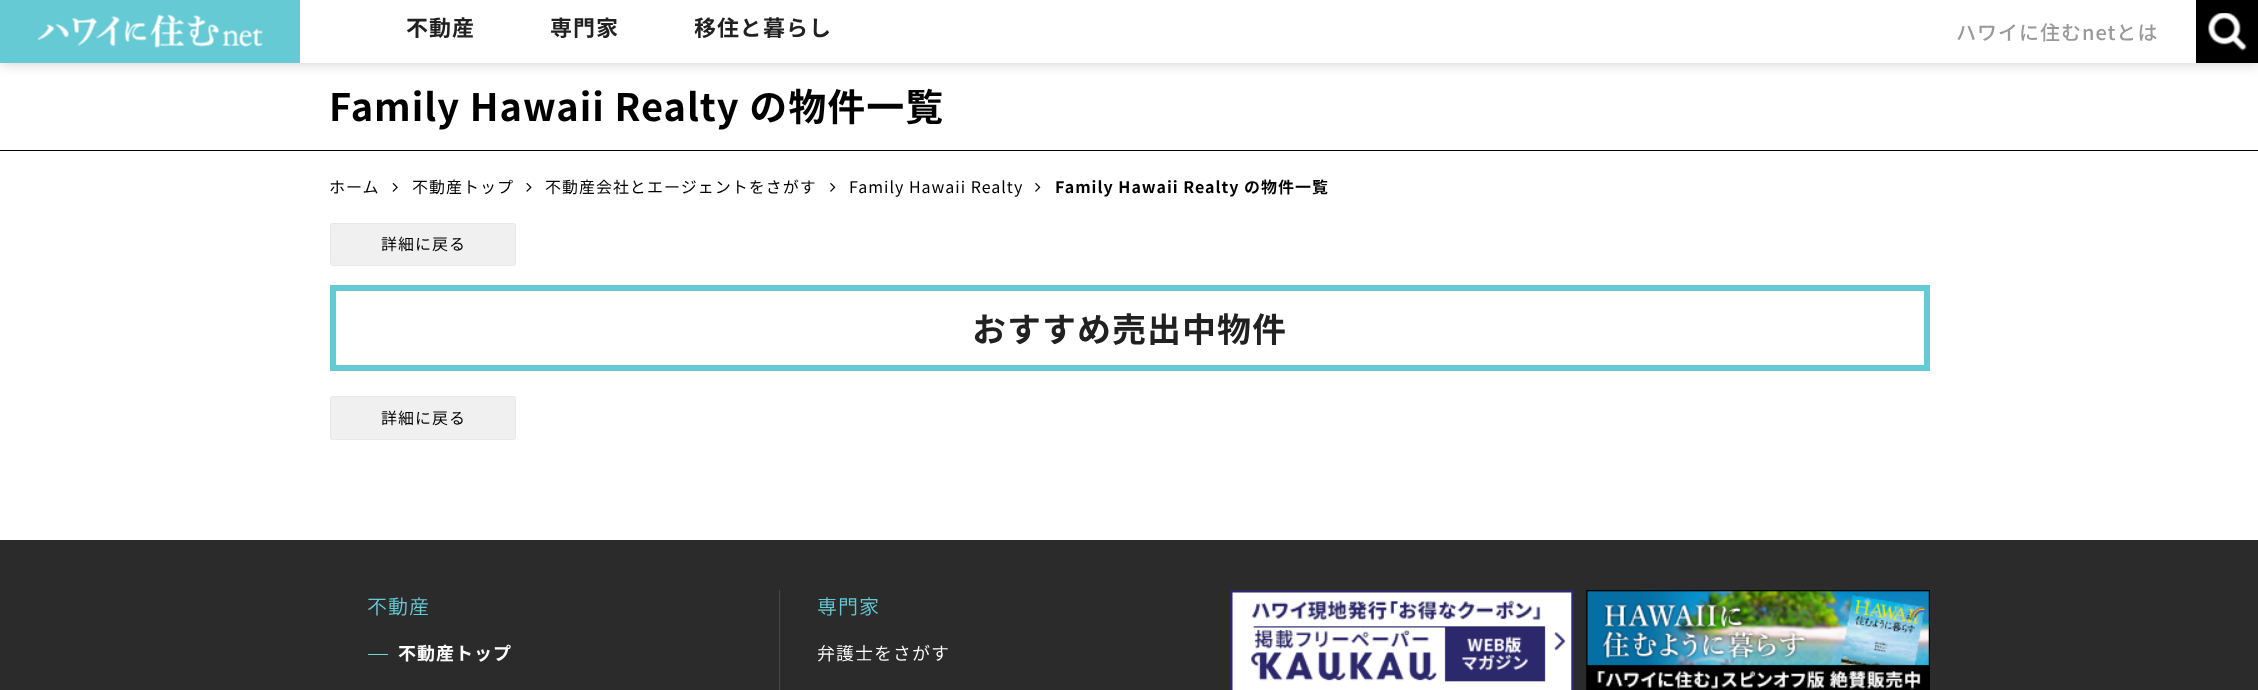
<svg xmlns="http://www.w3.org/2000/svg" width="2258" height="690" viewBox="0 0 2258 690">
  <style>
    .t1 { font: bold 22px Noto Sans JP; letter-spacing: 1px; fill: #212121; }
    .t2 { font: 500 20px Noto Sans JP; letter-spacing: 1px; fill: #999; }
    .t3 { font: bold 38px Noto Sans JP; letter-spacing: 1px; fill: #000; }
    .t4 { font: 16px Noto Sans JP; letter-spacing: 1px; fill: #000; }
    .t5 { font: bold 16px Noto Sans JP; letter-spacing: 1px; fill: #000; }
    .t6 { font: bold 34px Noto Sans JP; letter-spacing: 1px; fill: #212121; }
    .t7 { font: 300 20px Noto Sans JP; letter-spacing: 1px; fill: #66cad5; }
    .t8 { font: bold 18px Noto Sans JP; letter-spacing: 1px; fill: #fff; }
    .t9 { font: 300 18px Noto Sans JP; letter-spacing: 1px; fill: #fff; }
  </style>
  <rect width="100%" height="100%" fill="#fff"/>
  <rect x="0" y="0" width="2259" height="63" fill="#00000033" filter="blur(7px)"/>
  <rect x="300" y="0" width="1896" height="63" fill="#fff"/>
  <rect x="0" y="0" width="300" height="63" fill="#66cad5"/>
  <image x="38" y="14" width="225" height="34" href="images/1.png"/>
  <text x="406" y="36" class="t1">不動産</text>
  <text x="550" y="36" class="t1">専門家</text>
  <text x="694" y="36" class="t1">移住と暮らし</text>
  <text x="1956" y="40" class="t2">ハワイに住むnetとは</text>
  <rect x="2196" y="0" width="62" height="63" fill="#000"/>
  <image x="2208" y="13" width="39" height="38" href="images/2.png"/>
  <rect x="0" y="150" width="2258" height="1" fill="#000"/>
  <text x="329" y="121" class="t3">Family Hawaii Realty の物件一覧</text>
  <text x="329" y="193" class="t4">ホーム</text>
  <image x="392" y="183" width="6" height="9" href="images/3.png"/>
  <text x="412" y="193" class="t4">不動産トップ</text>
  <image x="526" y="183" width="6" height="9" href="images/4.png"/>
  <text x="545" y="193" class="t4">不動産会社とエージェントをさがす</text>
  <image x="830" y="183" width="6" height="9" href="images/5.png"/>
  <text x="849" y="193" class="t4">Family Hawaii Realty</text>
  <image x="1035" y="183" width="6" height="9" href="images/5.png"/>
  <text x="1055" y="193" class="t5">Family Hawaii Realty の物件一覧</text>
  <rect x="330.5" y="223.5" width="185" height="42" rx="2" fill="#f0f0f1" stroke="#e8e8e8"/>
  <text x="381" y="250" class="t4">詳細に戻る</text>
  <rect x="333" y="288" width="1594" height="80" fill="none" stroke="#66cad5" stroke-width="6"/>
  <text x="972" y="342" class="t6">おすすめ売出中物件</text>
  <rect x="330.5" y="396.5" width="185" height="43" rx="2" fill="#f0f0f1" stroke="#e8e8e8"/>
  <text x="381" y="424" class="t4">詳細に戻る</text>
  <rect x="0" y="540" width="2258" height="150" fill="#2b2b2b"/>
  <rect x="779" y="590" width="1" height="100" fill="#484848"/>
  <text x="367" y="614" class="t7">不動産</text>
  <rect x="368" y="654" width="20" height="1" fill="#74d8ce"/>
  <text x="398" y="660" class="t8">不動産トップ</text>
  <text x="817" y="614" class="t7">専門家</text>
  <text x="817" y="660" class="t9">弁護士をさがす</text>
  <image x="1230" y="590" width="344" height="100" href="images/6.png"/>
  <image x="1586" y="590" width="344" height="100" href="images/7.png"/>
</svg>
